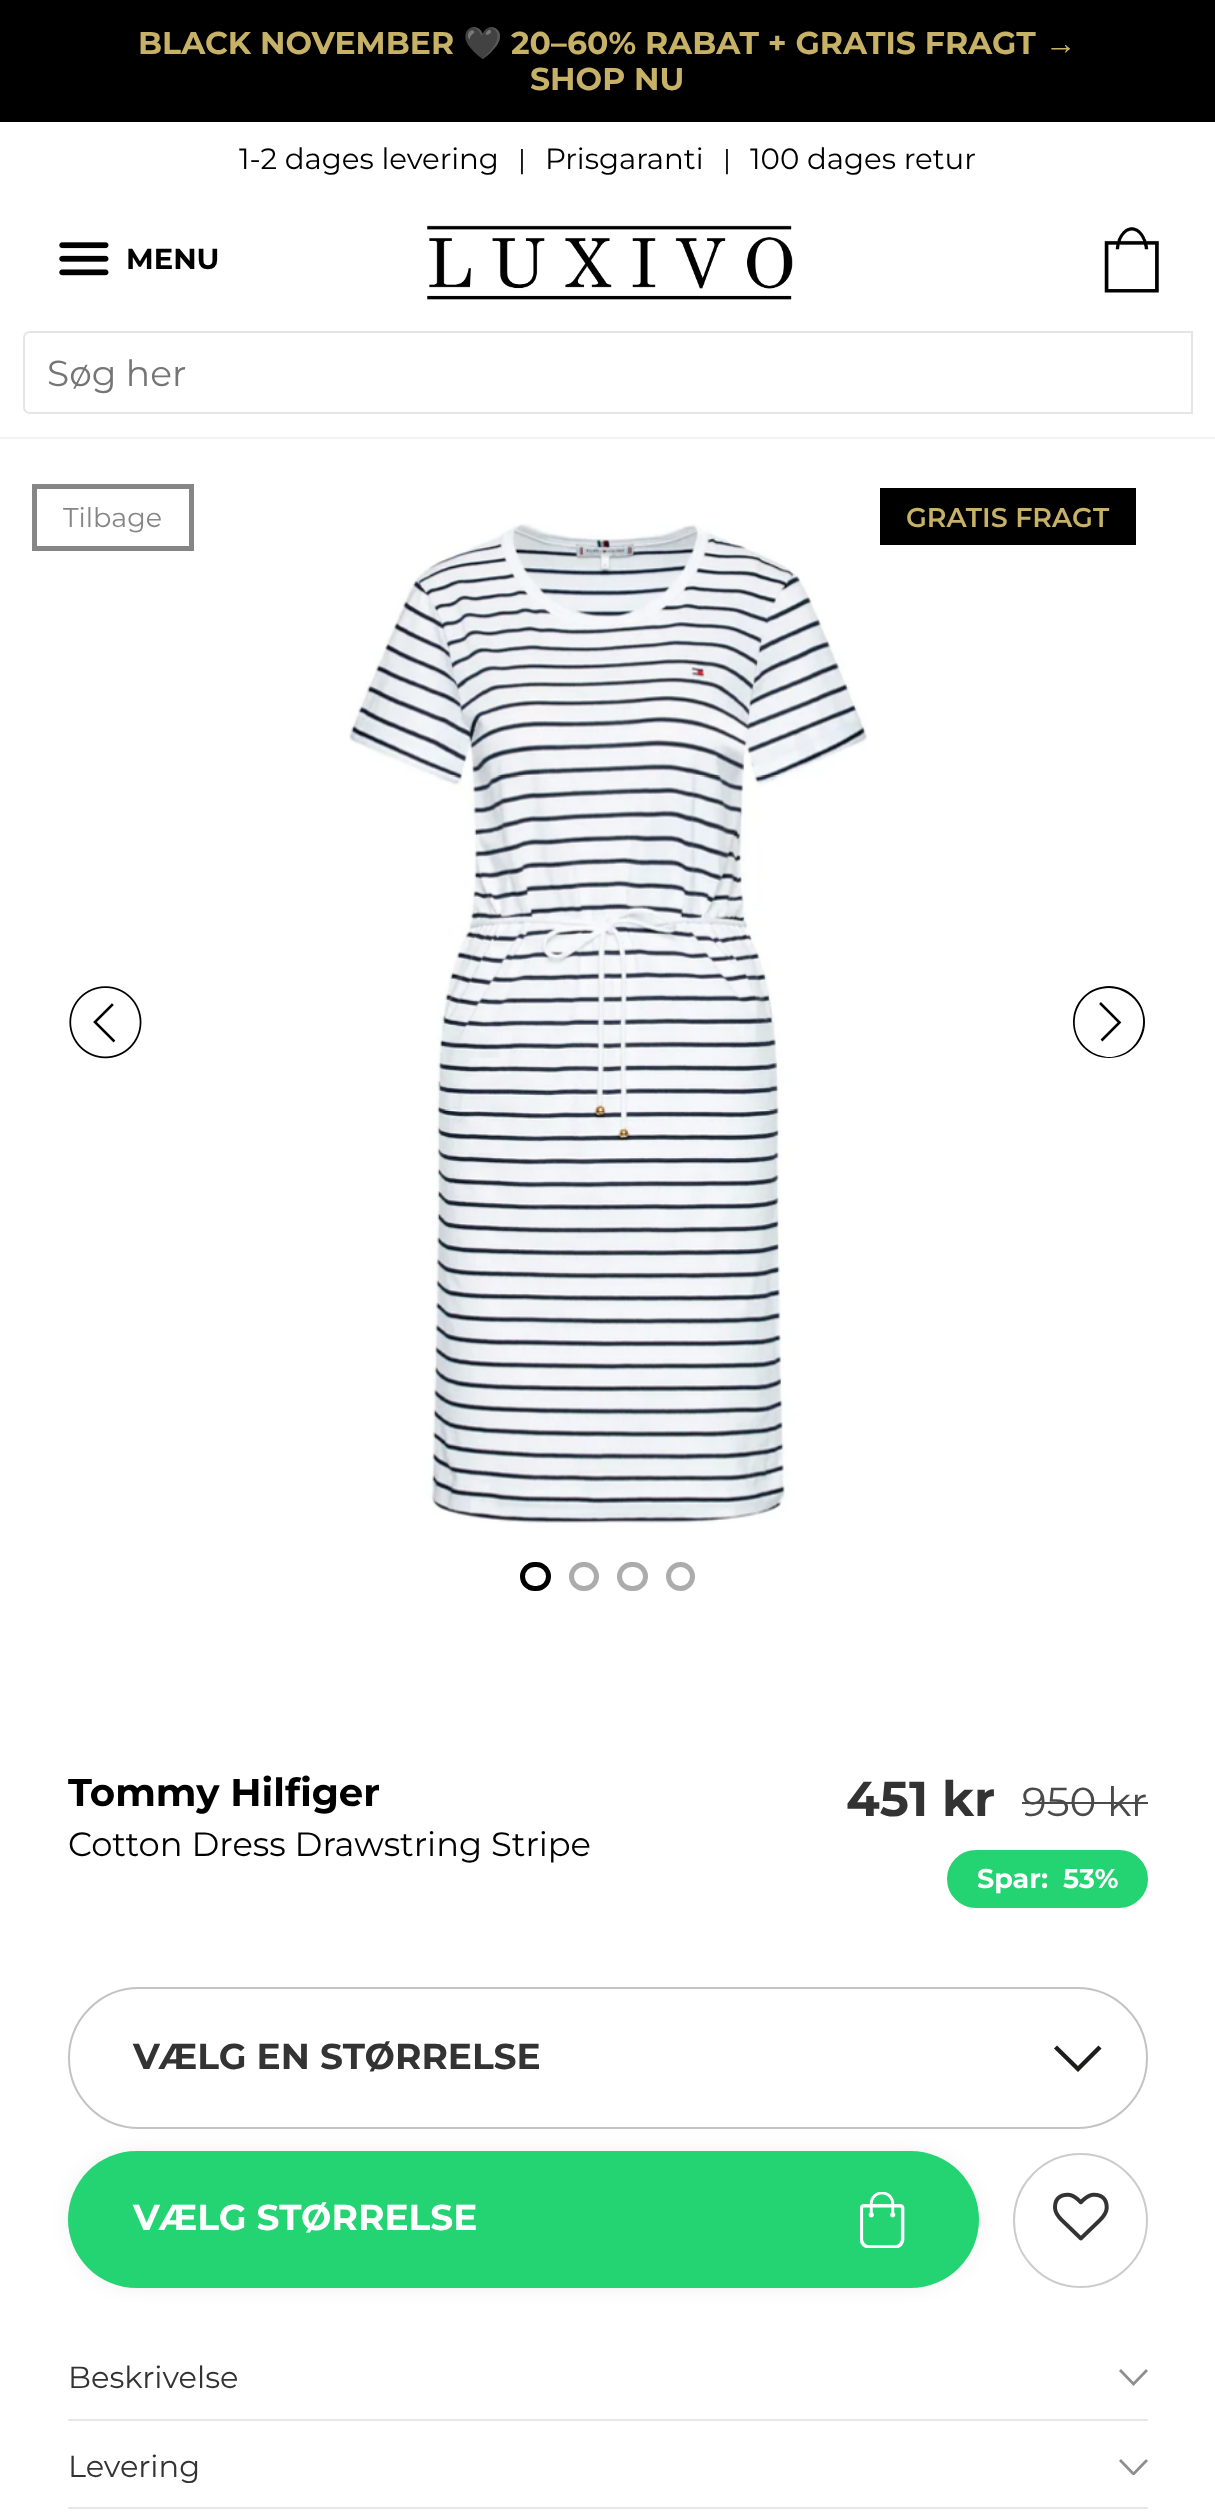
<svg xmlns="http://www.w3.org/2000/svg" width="1215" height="2517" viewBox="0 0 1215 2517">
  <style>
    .t1 { font: bold 31.5px Montserrat; fill: #c6b166; }
    .t2 { font: bold 31.5px Noto Color Emoji; fill: #c6b166; }
    .t3 { font: bold 31.5px Liberation Sans; fill: #c6b166; }
    .t4 { font: 29.25px Montserrat; fill: #000; }
    .t5 { font: 27px Montserrat; fill: #000; }
    .t6 { font: bold 29px Montserrat; fill: #000; }
    .t7 { font: 36px Montserrat; fill: #757575; }
    .t8 { font: 27px Montserrat; fill: #868686; }
    .t9 { font: 600 27px Montserrat; fill: #c6b166; }
    .t10 { font: bold 38.75px Montserrat; fill: #000; }
    .t11 { font: 33.75px Montserrat; fill: #000; }
    .t12 { font: bold 49px Montserrat; fill: #333; }
    .t13 { font: 40.5px Montserrat; fill: #4a4a4a; }
    .t14 { font: bold 27px Montserrat; fill: #fff; }
    .t15 { font: bold 36px Montserrat; fill: #333; }
    .t16 { font: bold 36px Montserrat; fill: #fff; }
    .t17 { font: 30.5px Montserrat; fill: #333; }
  </style>
  <defs>
    <clipPath id="clip1"><rect x="1118" y="2459" width="30" height="16"/></clipPath>
  </defs>
  <rect width="100%" height="100%" fill="#fff"/>
  <rect x="0" y="0" width="1215" height="122" fill="#000"/>
  <text x="138" y="54" class="t1">BLACK NOVEMBER</text>
  <text x="463" y="54" class="t2">🖤</text>
  <text x="511" y="54" class="t1">20–60% RABAT + GRATIS FRAGT</text>
  <text x="1045" y="54" class="t3">→</text>
  <text x="530" y="90" class="t1">SHOP NU</text>
  <text x="239" y="169" class="t4">1-2 dages levering</text>
  <text x="518" y="169" class="t5">|</text>
  <text x="545" y="169" class="t4">Prisgaranti</text>
  <text x="723" y="169" class="t5">|</text>
  <text x="750" y="169" class="t4">100 dages retur</text>
  <rect x="0" y="437" width="1215" height="2" fill="#f3f3f2"/>
  <image x="59" y="242" width="50" height="34" href="images/1.png"/>
  <text x="126" y="269" class="t6">MENU</text>
  <image x="427" y="225" width="366" height="75" href="images/2.png"/>
  <image x="1104" y="227" width="55" height="66" href="images/3.png"/>
  <path d="M30 332H1192V413H30C26.5 413 24 410.5 24 407V338C24 334.5 26.5 332 30 332Z" fill="none" stroke="#e5e5e5" stroke-width="2"/>
  <text x="47" y="386" class="t7">Søg her</text>
  <rect x="34.5" y="486.5" width="157" height="62" fill="none" stroke="#868686" stroke-width="5"/>
  <text x="63" y="527" class="t8">Tilbage</text>
  <rect x="880" y="488" width="256" height="57" fill="#000"/>
  <text x="906" y="527" class="t9">GRATIS FRAGT</text>
  <image x="69" y="986" width="73" height="73" href="images/4.png"/>
  <image x="349" y="523" width="518" height="1001" href="images/5.png"/>
  <path d="M1109 1058C1089 1058 1073 1042 1073 1022C1073 1002 1089 986 1109 986C1129 986 1145 1002 1145 1022C1145 1042 1129 1058 1109 1058ZM1109 988C1076 988 1062 1030 1089 1050C1094 1054 1101 1056 1107 1057C1141 1058 1157 1013 1128 994C1122 990 1116 988 1109 988Z" fill="#000"/>
  <path d="M1100 1003L1119.5 1022.5L1101.5 1040.5" fill="none" stroke="#000" stroke-width="2.6"/>
  <rect x="522.5" y="1564.5" width="26" height="24" rx="12" fill="none" stroke="#000" stroke-width="5"/>
  <rect x="571.5" y="1564.5" width="25" height="24" rx="12" fill="none" stroke="#acacac" stroke-width="5"/>
  <rect x="619.5" y="1564.5" width="26" height="24" rx="12" fill="none" stroke="#acacac" stroke-width="5"/>
  <circle cx="680.5" cy="1576.5" r="12" fill="none" stroke="#acacac" stroke-width="5"/>
  <text x="68" y="1806" class="t10">Tommy Hilfiger</text>
  <text x="68" y="1856" class="t11">Cotton Dress Drawstring Stripe</text>
  <text x="846" y="1816" class="t12">451 kr</text>
  <text x="1022" y="1816" class="t13">950 kr</text>
  <rect x="1022" y="1802" width="126" height="2" fill="#4a4a4a"/>
  <rect x="948" y="1851" width="199" height="56" rx="28" fill="#24d372" stroke="#24d372" stroke-width="2"/>
  <text x="977" y="1888" class="t14">Spar:</text>
  <text x="1063" y="1888" class="t14">53%</text>
  <path d="M1055.5 2047L1078 2069L1100 2047" fill="none" stroke="#1f1c1c" stroke-width="4.4"/>
  <rect x="69" y="1988" width="1078" height="140" rx="70" fill="none" stroke="#c3c3c3" stroke-width="2"/>
  <text x="133" y="2069" class="t15">VÆLG EN STØRRELSE</text>
  <rect x="79" y="2162" width="889" height="115" rx="57.5" fill="#0000002b" filter="blur(13.5px)"/>
  <rect x="68" y="2151" width="911" height="137" rx="68.5" fill="#24d372"/>
  <image x="860" y="2192" width="45" height="56" href="images/6.png"/>
  <text x="133" y="2230" class="t16">VÆLG STØRRELSE</text>
  <circle cx="1080.5" cy="2220.5" r="66.5" fill="none" stroke="#ccc" stroke-width="2"/>
  <image x="1053" y="2192" width="56" height="49" href="images/7.png"/>
  <rect x="68" y="2419" width="1080" height="2" fill="#e7e7e7"/>
  <text x="68" y="2388" class="t17">Beskrivelse</text>
  <path d="M1120 2370L1133.5 2384L1147 2370" fill="none" stroke="#8f8e8e" stroke-width="2.7"/>
  <rect x="68" y="2507" width="1080" height="2" fill="#e7e7e7"/>
  <text x="68" y="2477" class="t17">Levering</text>
  <g clip-path="url(#clip1)">
    <path d="M1120 2460L1133.5 2474L1147 2460" fill="none" stroke="#8f8e8e" stroke-width="2.7"/>
  </g>
</svg>
